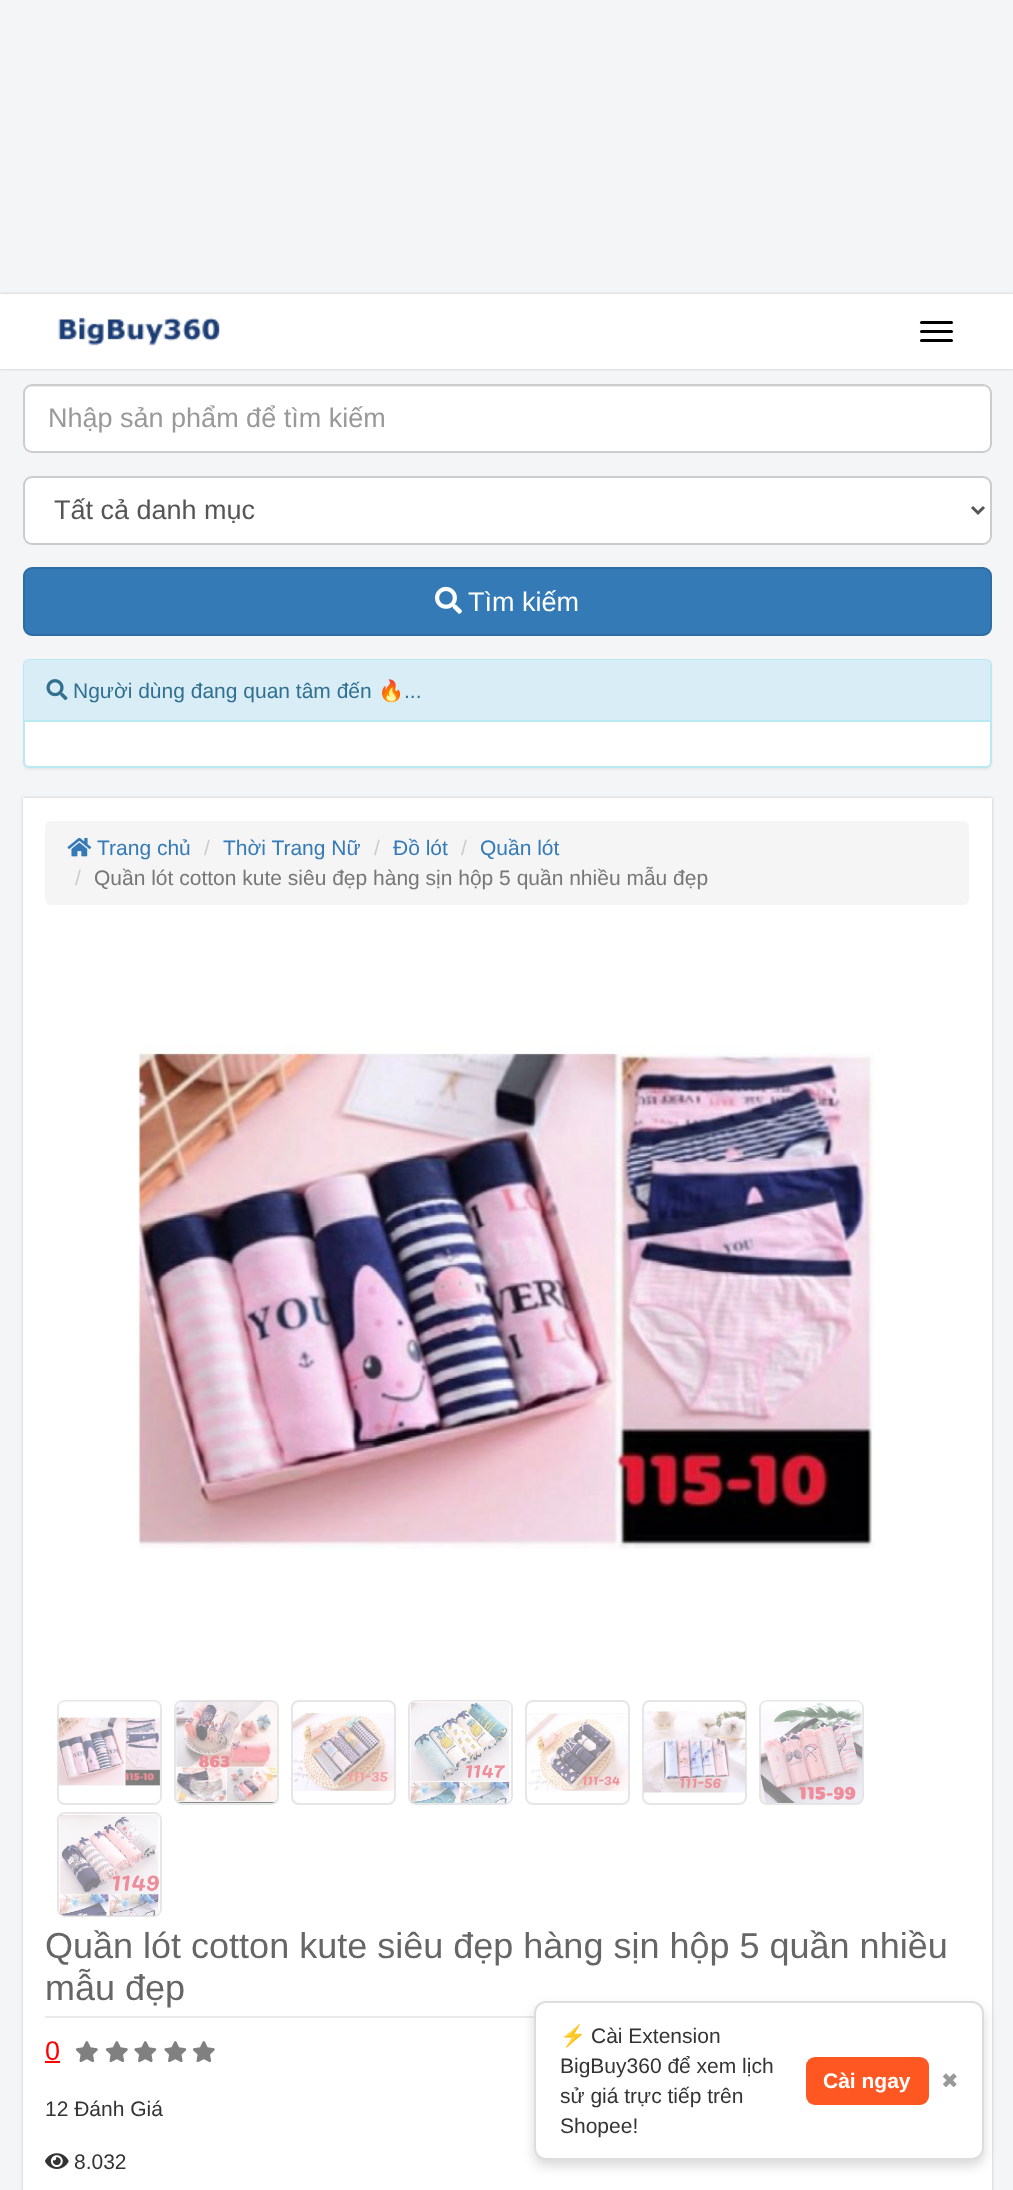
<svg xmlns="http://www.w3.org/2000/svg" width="1013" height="2190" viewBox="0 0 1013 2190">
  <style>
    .t1 { font: 27px Liberation Sans; fill: #999; }
    .t2 { font: 27px Liberation Sans; fill: #555; }
    .t3 { font: 27px Liberation Sans; fill: #fff; }
    .t4 { font: 21px Liberation Sans; fill: #31708f; }
    .t5 { font: 21px Noto Color Emoji; fill: #31708f; }
    .t6 { font: 21px Liberation Sans; fill: #337ab7; }
    .t7 { font: 21px Liberation Sans; fill: #ccc; }
    .t8 { font: 21px Liberation Sans; fill: #777; }
    .t9 { font: 36px Liberation Sans; fill: #666; }
    .t10 { font: 27px Liberation Sans; fill: #f00; }
    .t11 { font: 21px Liberation Sans; fill: #333; }
    .t12 { font: 21px Noto Color Emoji; fill: #333; }
    .t13 { font: bold 21px Liberation Sans; fill: #fff; }
    .t14 { font: 21px DejaVu Sans; fill: #999; }
  </style>
  <rect width="100%" height="100%" fill="#f4f5f7"/>
  <rect x="0" y="294" width="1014" height="75" fill="#00000033" filter="blur(1.5px)"/>
  <rect x="0" y="294" width="1013" height="75" fill="#fff"/>
  <image x="58" y="317" width="162" height="29" href="images/1.png"/>
  <rect x="920" y="321" width="33" height="3" rx="1.5" fill="#000"/>
  <rect x="920" y="330" width="33" height="3" rx="1.5" fill="#000"/>
  <rect x="920" y="339" width="33" height="3" rx="1.5" fill="#000"/>
  <rect x="23" y="384" width="969" height="69" rx="9" fill="#fff"/>
  <path d="M32 387H982C987 387 990 390 990 394C990 390 986 386 982 386H32C28 386 24 390 24 394C24 390 27 387 32 387Z" fill="#ececec"/>
  <rect x="24" y="385" width="967" height="67" rx="8" fill="none" stroke="#ccc" stroke-width="2"/>
  <text x="48" y="427" class="t1">Nhập sản phẩm để tìm kiếm</text>
  <rect x="23" y="476" width="969" height="69" rx="9" fill="#fff"/>
  <path d="M32 478H982C987 478 990 482 990 486C990 481 987 477 982 477H32C27 477 24 481 24 486C24 482 27 478 32 478Z" fill="#ececec"/>
  <rect x="24" y="477" width="967" height="67" rx="8" fill="none" stroke="#ccc" stroke-width="2"/>
  <path d="M972 507L978 513L984 507" fill="none" stroke="#555" stroke-width="3"/>
  <text x="54" y="519" class="t2">Tất cả danh mục</text>
  <rect x="24" y="568" width="967" height="67" rx="8" fill="#337ab7" stroke="#2e6da4" stroke-width="2"/>
  <image x="435" y="586" width="27" height="28" href="images/2.png"/>
  <text x="468" y="611" class="t3">Tìm kiếm</text>
  <rect x="23" y="660" width="969" height="110" rx="6" fill="#0000000d" filter="blur(1px)"/>
  <rect x="24" y="660" width="967" height="107" rx="5" fill="#fff" stroke="#bce8f1" stroke-width="2"/>
  <path d="M29 660H985C988 660 990 662 990 665V722H24V665C24 662 26 660 29 660Z" fill="#d9edf7"/>
  <rect x="24" y="720" width="966" height="2" fill="#bce8f1"/>
  <image x="46" y="679" width="22" height="22" href="images/3.png"/>
  <text x="73" y="698" class="t4">Người dùng đang quan tâm đến</text>
  <text x="378" y="698" class="t5">🔥</text>
  <text x="404" y="698" class="t4">...</text>
  <rect x="23" y="798" width="969" height="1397" fill="#00000033" filter="blur(1.5px)"/>
  <rect x="23" y="798" width="969" height="1392" fill="#fff"/>
  <rect x="45" y="821" width="924" height="84" rx="6" fill="#f5f5f5"/>
  <image x="67" y="837" width="25" height="20" href="images/4.png"/>
  <text x="97" y="855" class="t6">Trang chủ</text>
  <text x="204" y="855" class="t7">/</text>
  <text x="223" y="855" class="t6">Thời Trang Nữ</text>
  <text x="374" y="855" class="t7">/</text>
  <text x="393" y="855" class="t6">Đồ lót</text>
  <text x="461" y="855" class="t7">/</text>
  <text x="480" y="855" class="t6">Quần lót</text>
  <text x="75" y="885" class="t7">/</text>
  <text x="94" y="885" class="t8">Quần lót cotton kute siêu đẹp hàng sịn hộp 5 quần nhiều mẫu đẹp</text>
  <image x="138" y="1045" width="737" height="504" href="images/5.png"/>
  <rect x="58" y="1701" width="103" height="103" rx="7" fill="none" stroke="#e6e6e6" stroke-width="2"/>
  <image x="58" y="1701" width="102" height="102" href="images/6.png"/>
  <rect x="175" y="1701" width="103" height="103" rx="7" fill="none" stroke="#e6e6e6" stroke-width="2"/>
  <image x="176" y="1701" width="101" height="102" href="images/7.png"/>
  <rect x="292" y="1701" width="103" height="103" rx="7" fill="none" stroke="#e6e6e6" stroke-width="2"/>
  <image x="292" y="1713" width="102" height="78" href="images/8.png"/>
  <rect x="409" y="1701" width="103" height="103" rx="7" fill="none" stroke="#e6e6e6" stroke-width="2"/>
  <image x="410" y="1701" width="101" height="102" href="images/9.png"/>
  <rect x="526" y="1701" width="103" height="103" rx="7" fill="none" stroke="#e6e6e6" stroke-width="2"/>
  <image x="526" y="1713" width="102" height="78" href="images/10.png"/>
  <rect x="643" y="1701" width="103" height="103" rx="7" fill="none" stroke="#e6e6e6" stroke-width="2"/>
  <image x="643" y="1711" width="103" height="82" href="images/11.png"/>
  <rect x="760" y="1701" width="103" height="103" rx="7" fill="none" stroke="#e6e6e6" stroke-width="2"/>
  <image x="760" y="1701" width="103" height="102" href="images/12.png"/>
  <rect x="58" y="1813" width="103" height="103" rx="7" fill="none" stroke="#e6e6e6" stroke-width="2"/>
  <image x="59" y="1814" width="101" height="102" href="images/13.png"/>
  <rect x="45" y="2016" width="489" height="2" fill="#eaeaea"/>
  <text x="45" y="1958" class="t9">Quần lót cotton kute siêu đẹp hàng sịn hộp 5 quần nhiều</text>
  <text x="45" y="2000" class="t9">mẫu đẹp</text>
  <text x="45" y="2060" class="t10">0</text>
  <rect x="45" y="2061" width="15" height="2" fill="#f00"/>
  <image x="75" y="2041" width="23" height="22" href="images/14.png"/>
  <image x="105" y="2041" width="23" height="22" href="images/14.png"/>
  <image x="134" y="2041" width="23" height="22" href="images/15.png"/>
  <image x="164" y="2041" width="23" height="22" href="images/15.png"/>
  <image x="192" y="2041" width="23" height="22" href="images/14.png"/>
  <text x="45" y="2116" class="t11">12 Đánh Giá</text>
  <image x="45" y="2153" width="24" height="16" href="images/16.png"/>
  <text x="74" y="2169" class="t11">8.032</text>
  <rect x="534" y="2007" width="450" height="159" rx="12" fill="#00000026" filter="blur(6px)"/>
  <rect x="535" y="2002" width="448" height="157" rx="11" fill="#fff" stroke="#ddd" stroke-width="2"/>
  <text x="560" y="2043" class="t12">⚡</text>
  <text x="591" y="2043" class="t11">Cài Extension</text>
  <text x="560" y="2073" class="t11">BigBuy360 để xem lịch</text>
  <text x="560" y="2103" class="t11">sử giá trực tiếp trên</text>
  <text x="560" y="2133" class="t11">Shopee!</text>
  <rect x="806" y="2057" width="123" height="48" rx="9" fill="#ff5722"/>
  <text x="823" y="2088" class="t13">Cài ngay</text>
  <text x="941" y="2088" class="t14">✖</text>
</svg>
